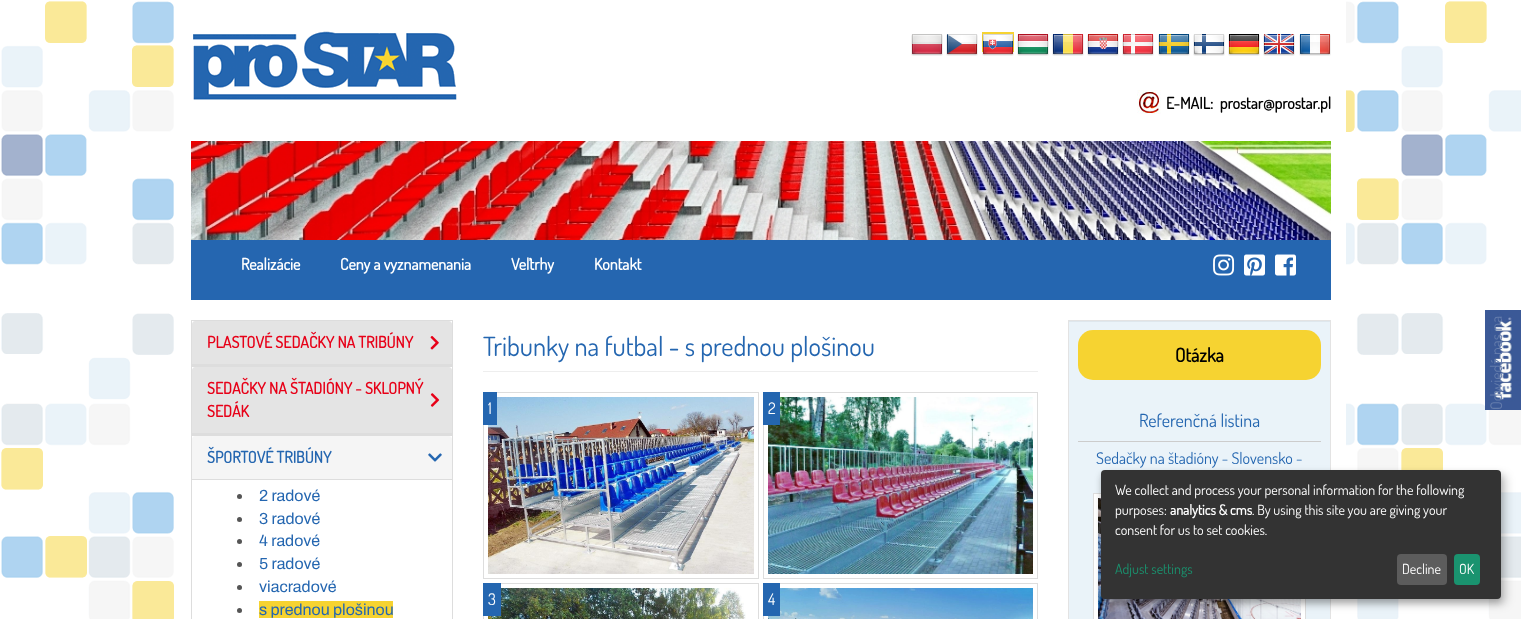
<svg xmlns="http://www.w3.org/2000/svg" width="1521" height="619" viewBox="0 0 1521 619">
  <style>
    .t1 { font: bold 16px Dosis; fill: #000; }
    .t2 { font: bold 16px Dosis; fill: #fff; }
    .t3 { font: bold 16px Dosis; fill: #e70118; }
    .t4 { font: bold 16px Dosis; fill: #2466b0; }
    .t5 { font: 16px Archivo; fill: #2466b0; }
    .t6 { font: 26.5px Dosis; fill: #2466b0; }
    .t7 { font: 16px Dosis; fill: #fff; }
    .t8 { font: bold 19px Dosis; fill: #000; }
    .t9 { font: 18px Dosis; fill: #2466b0; }
    .t10 { font: 16px Dosis; fill: #2466b0; }
    .t11 { font: 16px Dosis; fill: #647cac; }
    .t12 { font: 14px Dosis; fill: #fff; }
    .t13 { font: bold 14px Dosis; fill: #fff; }
    .t14 { font: 14px Dosis; fill: #1a936f; }
  </style>
  <rect width="100%" height="100%" fill="#fff"/>
  <image x="1" y="1" width="1520" height="618" href="images/1.png"/>
  <rect x="176" y="1" width="1170" height="618" fill="#fff"/>
  <image x="193" y="31" width="264" height="69" href="images/2.png"/>
  <image x="911" y="34" width="32" height="22" href="images/3.png"/>
  <image x="946" y="34" width="32" height="22" href="images/4.png"/>
  <rect x="982" y="32" width="32" height="20" fill="#f6d331"/>
  <image x="982" y="34" width="32" height="22" href="images/5.png"/>
  <image x="1017" y="34" width="32" height="22" href="images/6.png"/>
  <image x="1052" y="34" width="32" height="22" href="images/7.png"/>
  <image x="1087" y="34" width="32" height="22" href="images/8.png"/>
  <image x="1122" y="34" width="32" height="22" href="images/9.png"/>
  <image x="1158" y="34" width="32" height="22" href="images/10.png"/>
  <image x="1193" y="34" width="32" height="22" href="images/11.png"/>
  <image x="1228" y="34" width="32" height="22" href="images/12.png"/>
  <image x="1263" y="34" width="32" height="22" href="images/13.png"/>
  <image x="1299" y="34" width="32" height="22" href="images/14.png"/>
  <image x="1137" y="90" width="24" height="24" href="images/15.png"/>
  <text x="1166" y="109" class="t1" xml:space="preserve">E-MAIL:  prostar@prostar.pl</text>
  <image x="191" y="141" width="1140" height="99" href="images/16.png"/>
  <rect x="191" y="240" width="1140" height="60" fill="#2566b0"/>
  <text x="241" y="270" class="t2">Realizácie</text>
  <text x="340" y="270" class="t2">Ceny a vyznamenania</text>
  <text x="511" y="270" class="t2">Veľtrhy</text>
  <text x="594" y="270" class="t2">Kontakt</text>
  <image x="1213" y="254" width="22" height="22" href="images/17.png"/>
  <image x="1244" y="254" width="21" height="22" href="images/18.png"/>
  <image x="1275" y="254" width="21" height="22" href="images/19.png"/>
  <rect x="191.5" y="320.5" width="261" height="45" fill="none" stroke="#ddd"/>
  <path d="M195 321H449C450.5 321 452 322.5 452 324V365H192V324C192 322.5 193.5 321 195 321Z" fill="#e4e4e4"/>
  <rect x="192" y="364" width="260" height="1" fill="#ddd"/>
  <text x="207" y="348" class="t3">PLASTOVÉ SEDAČKY NA TRIBÚNY</text>
  <image x="430" y="336" width="9" height="14" href="images/20.png"/>
  <rect x="191.5" y="366.5" width="261" height="68" fill="none" stroke="#ddd"/>
  <path d="M195 367H449C450.5 367 452 368.5 452 370V434H192V370C192 368.5 193.5 367 195 367Z" fill="#e4e4e4"/>
  <rect x="192" y="433" width="260" height="1" fill="#ddd"/>
  <text x="207" y="394" class="t3">SEDAČKY NA ŠTADIÓNY - SKLOPNÝ</text>
  <text x="207" y="417" class="t3">SEDÁK</text>
  <image x="430" y="393" width="10" height="14" href="images/21.png"/>
  <rect x="191.5" y="435.5" width="261" height="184" fill="none" stroke="#ddd"/>
  <path d="M195 436H449C450.5 436 452 437.5 452 439V480H192V439C192 437.5 193.5 436 195 436Z" fill="#f5f5f5"/>
  <rect x="192" y="479" width="260" height="1" fill="#ddd"/>
  <text x="207" y="463" class="t4">ŠPORTOVÉ TRIBÚNY</text>
  <image x="428" y="453" width="14" height="9" href="images/22.png"/>
  <circle cx="239.5" cy="496.5" r="2.5" fill="#555"/>
  <text x="259" y="501" class="t5">2 radové</text>
  <circle cx="239.5" cy="519.5" r="2.5" fill="#555"/>
  <text x="259" y="524" class="t5">3 radové</text>
  <circle cx="239.5" cy="541.5" r="2.5" fill="#555"/>
  <text x="259" y="546" class="t5">4 radové</text>
  <circle cx="239.5" cy="564.5" r="2.5" fill="#555"/>
  <text x="259" y="569" class="t5">5 radové</text>
  <circle cx="239.5" cy="587.5" r="2.5" fill="#555"/>
  <text x="259" y="592" class="t5">viacradové</text>
  <circle cx="239.5" cy="610.5" r="2.5" fill="#555"/>
  <rect x="259" y="601" width="134" height="17" fill="#f6d331"/>
  <text x="259" y="615" class="t5">s prednou plošinou</text>
  <rect x="483" y="371" width="555" height="1" fill="#eee"/>
  <text x="483" y="356" class="t6">Tribunky na futbal - s prednou plošinou</text>
  <rect x="483.5" y="392.5" width="275" height="186" fill="none" stroke="#ddd"/>
  <image x="488" y="397" width="266" height="177" href="images/23.png"/>
  <rect x="483" y="392" width="14" height="33" fill="#2466b0"/>
  <text x="488" y="414" class="t7">1</text>
  <rect x="763.5" y="392.5" width="274" height="186" fill="none" stroke="#ddd"/>
  <image x="768" y="397" width="265" height="177" href="images/24.png"/>
  <rect x="763" y="392" width="17" height="33" fill="#2466b0"/>
  <text x="768" y="414" class="t7">2</text>
  <rect x="483.5" y="583.5" width="275" height="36" fill="none" stroke="#ddd"/>
  <image x="488" y="588" width="258" height="31" href="images/25.png"/>
  <rect x="483" y="583" width="18" height="33" fill="#2466b0"/>
  <text x="488" y="605" class="t7">3</text>
  <rect x="763.5" y="583.5" width="274" height="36" fill="none" stroke="#ddd"/>
  <image x="768" y="588" width="265" height="31" href="images/26.png"/>
  <rect x="763" y="583" width="17" height="33" fill="#2466b0"/>
  <text x="768" y="605" class="t7">4</text>
  <rect x="1069" y="322" width="261" height="297" fill="#eaf3f9"/>
  <rect x="1069" y="321" width="261" height="1" fill="#dee7ed"/>
  <rect x="1068.5" y="320.5" width="262" height="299" fill="none" stroke="#e3e3e3"/>
  <rect x="1078" y="330" width="243" height="50" rx="15" fill="#f6d331"/>
  <text x="1175" y="362" class="t8">Otázka</text>
  <text x="1139" y="427" class="t9">Referenčná listina</text>
  <rect x="1078" y="441" width="243" height="1" fill="#ccc"/>
  <text x="1096" y="464" class="t10">Sedačky na štadióny - Slovensko -</text>
  <rect x="1093.5" y="493.5" width="212" height="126" fill="#fff" stroke="#ddd"/>
  <image x="1098" y="498" width="203" height="121" href="images/27.png"/>
  <image x="1485" y="310" width="36" height="100" href="images/28.png"/>
  <text x="1502" y="410" transform="rotate(-90 1502 410)" class="t11">Odwiedź nas na</text>
  <rect x="1106" y="475" width="400" height="129" rx="4" fill="#00000030" filter="blur(5px)"/>
  <rect x="1101" y="474" width="400" height="129" rx="4" fill="#00000033" filter="blur(3px)"/>
  <rect x="1101" y="470" width="400" height="129" rx="4" fill="#333"/>
  <text x="1115" y="495" class="t12">We collect and process your personal information for the following</text>
  <text x="1115" y="515" class="t12">purposes:</text>
  <text x="1170" y="515" class="t13">analytics &amp; cms</text>
  <text x="1252" y="515" class="t12">. By using this site you are giving your</text>
  <text x="1115" y="535" class="t12">consent for us to set cookies.</text>
  <text x="1115" y="574" class="t14">Adjust settings</text>
  <rect x="1397" y="554" width="50" height="31" rx="4" fill="#5c5c5c"/>
  <text x="1402" y="574" class="t12">Decline</text>
  <rect x="1454" y="554" width="26" height="31" rx="4" fill="#1a936f"/>
  <text x="1459" y="574" class="t12">OK</text>
</svg>
